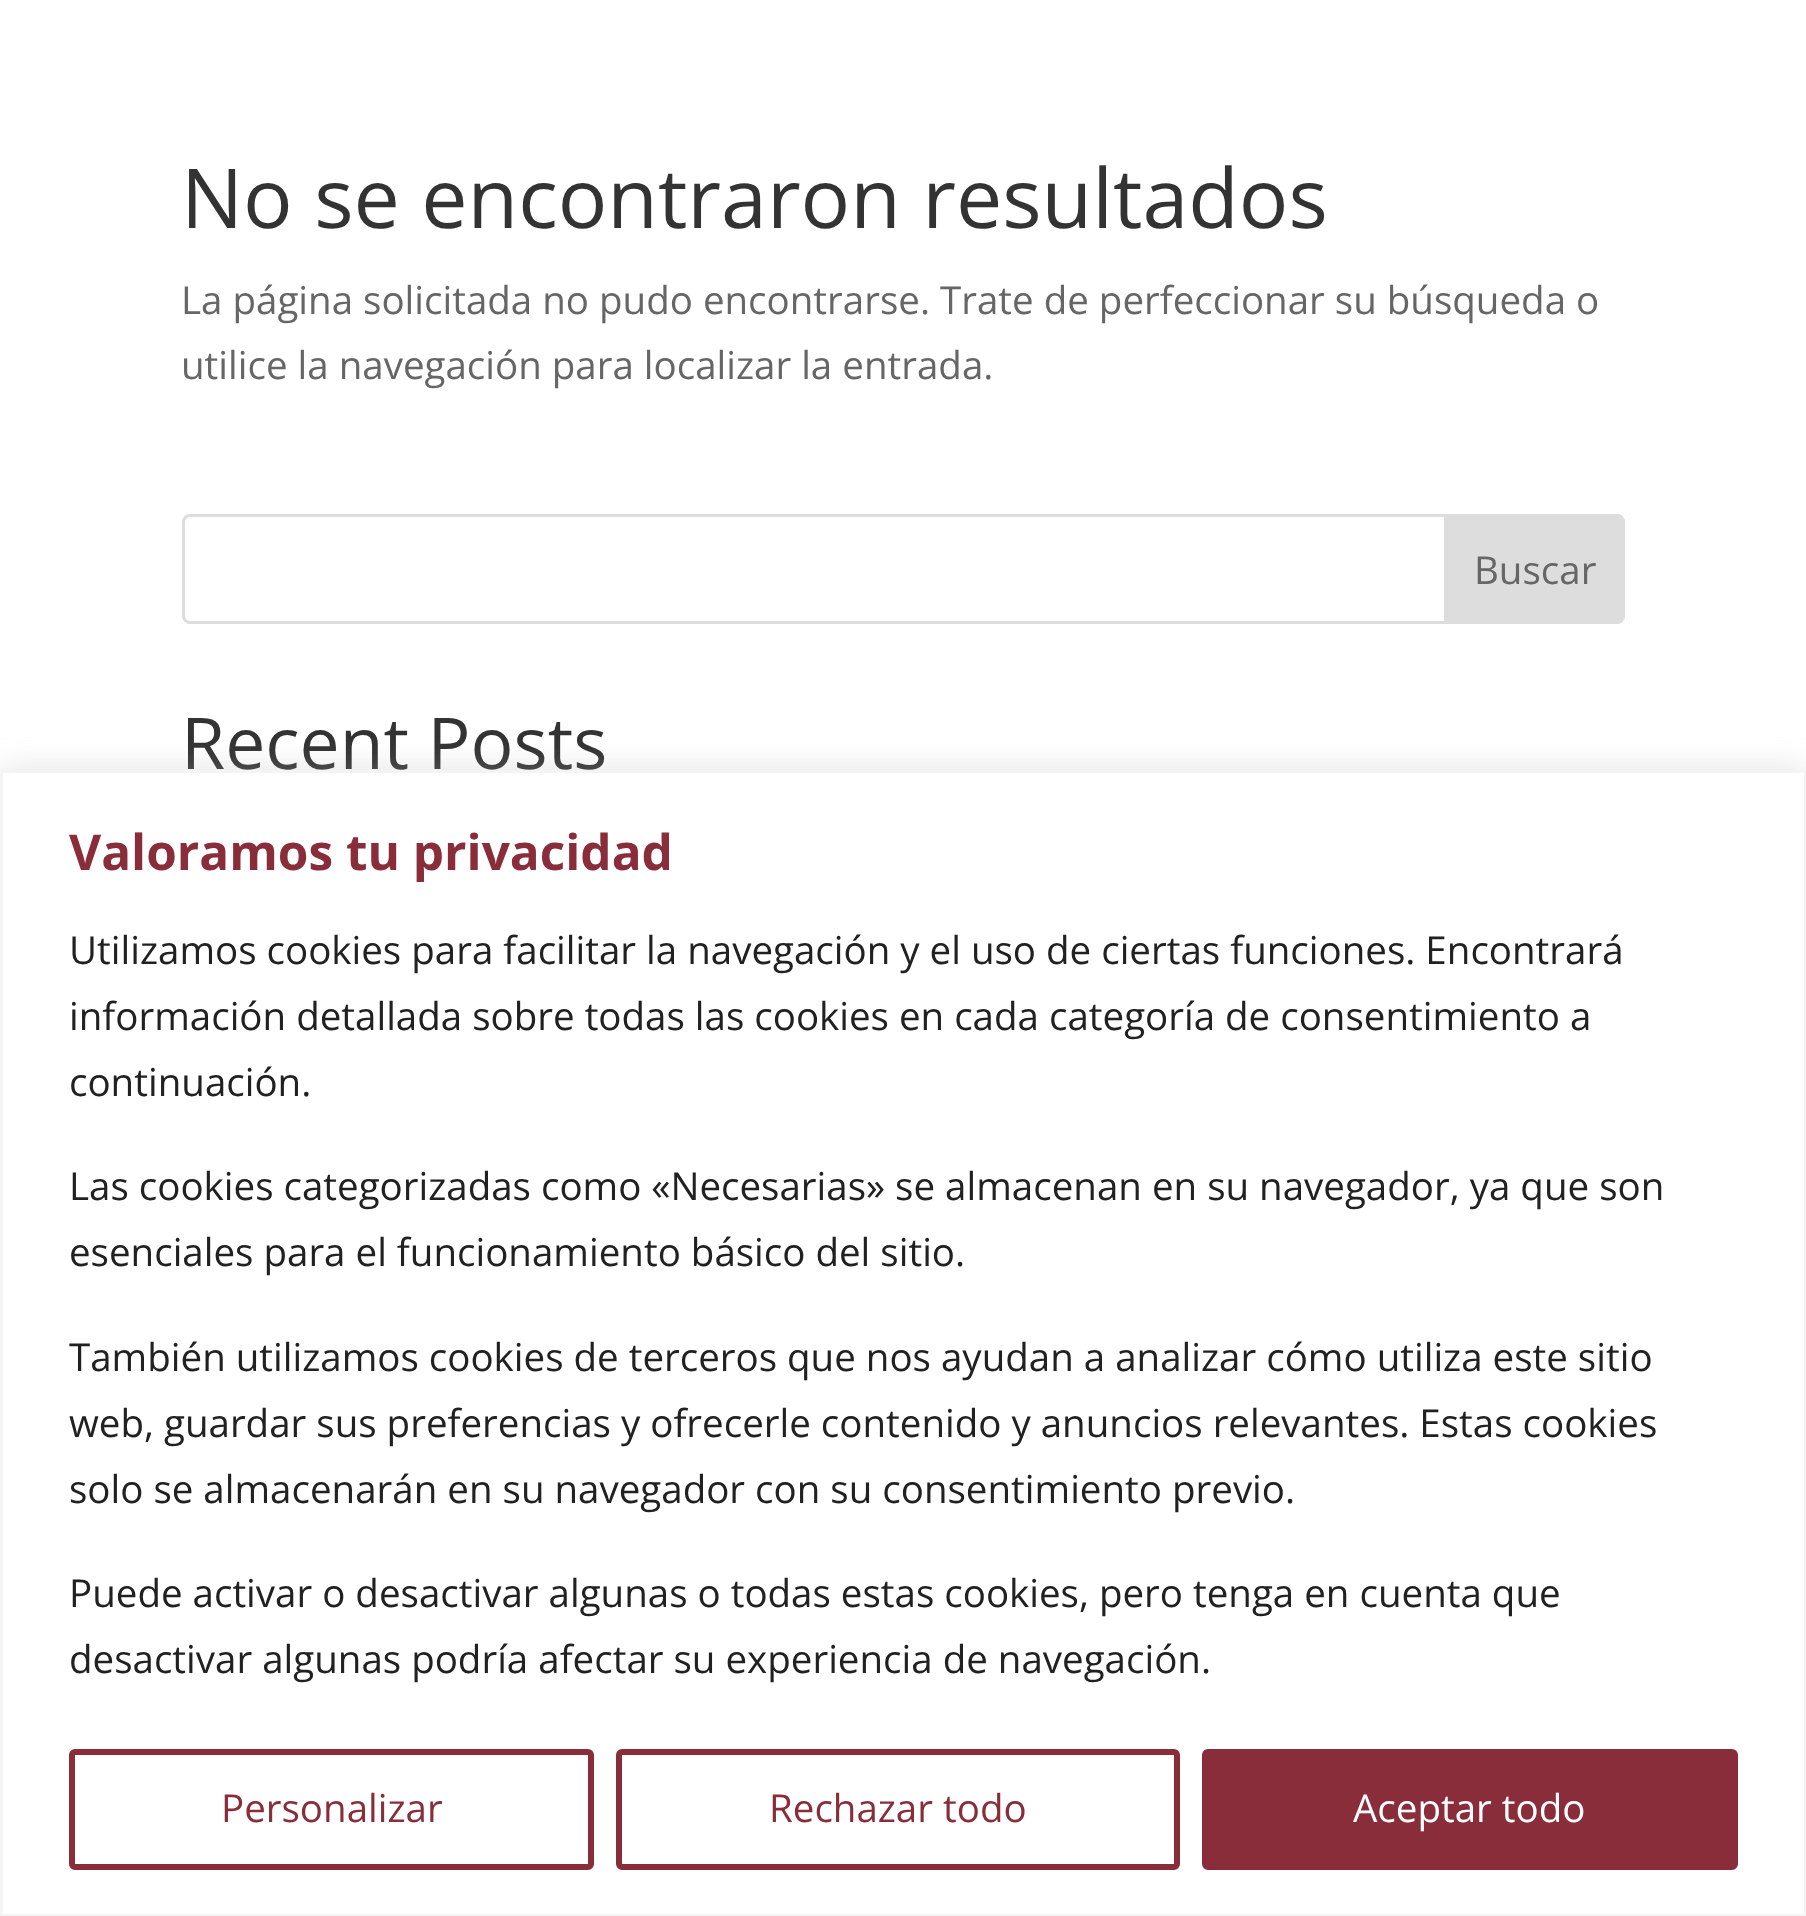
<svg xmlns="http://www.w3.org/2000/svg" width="1806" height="1916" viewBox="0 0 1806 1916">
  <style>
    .t1 { font: 82.5px Open Sans; fill: #333; }
    .t2 { font: 38.5px Open Sans; fill: #666; }
    .t3 { font: 71.5px Open Sans; fill: #333; }
    .t4 { font: bold 49.5px Open Sans; fill: #892d3b; }
    .t5 { font: 38.5px Open Sans; fill: #212121; }
    .t6 { font: 38.5px Open Sans; fill: #892d3b; }
    .t7 { font: 38.5px Open Sans; fill: #fff; }
  </style>
  <rect width="100%" height="100%" fill="#fff"/>
  <text x="181" y="228" class="t1">No se encontraron resultados</text>
  <text x="181" y="314" class="t2">La página solicitada no pudo encontrarse. Trate de perfeccionar su búsqueda o</text>
  <text x="181" y="379" class="t2">utilice la navegación para localizar la entrada.</text>
  <rect x="183.5" y="515.5" width="1440" height="107" rx="6.5" fill="none" stroke="#ddd" stroke-width="3"/>
  <path d="M1445.5 515.5H1617C1620.5 515.5 1623.5 518.5 1623.5 522V616C1623.5 619.5 1620.5 622.5 1617 622.5H1445.5Z" fill="#ddd" stroke="#ddd" stroke-width="3"/>
  <text x="1474" y="584" class="t2">Buscar</text>
  <text x="181" y="769" class="t3">Recent Posts</text>
  <rect x="0" y="767" width="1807" height="1147" fill="#acabab4d" filter="blur(14px)"/>
  <rect x="1.5" y="771.5" width="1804" height="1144" fill="#fff" stroke="#f4f4f4" stroke-width="3"/>
  <text x="69" y="870" class="t4">Valoramos tu privacidad</text>
  <text x="69" y="964" class="t5">Utilizamos cookies para facilitar la navegación y el uso de ciertas funciones. Encontrará</text>
  <text x="69" y="1030" class="t5">información detallada sobre todas las cookies en cada categoría de consentimiento a</text>
  <text x="69" y="1096" class="t5">continuación.</text>
  <text x="69" y="1200" class="t5">Las cookies categorizadas como «Necesarias» se almacenan en su navegador, ya que son</text>
  <text x="69" y="1266" class="t5">esenciales para el funcionamiento básico del sitio.</text>
  <text x="69" y="1371" class="t5">También utilizamos cookies de terceros que nos ayudan a analizar cómo utiliza este sitio</text>
  <text x="69" y="1437" class="t5">web, guardar sus preferencias y ofrecerle contenido y anuncios relevantes. Estas cookies</text>
  <text x="69" y="1503" class="t5">solo se almacenarán en su navegador con su consentimiento previo.</text>
  <text x="69" y="1607" class="t5">Puede activar o desactivar algunas o todas estas cookies, pero tenga en cuenta que</text>
  <text x="69" y="1673" class="t5">desactivar algunas podría afectar su experiencia de navegación.</text>
  <rect x="72" y="1752" width="519" height="115" rx="3" fill="none" stroke="#892d3b" stroke-width="6"/>
  <text x="221" y="1822" class="t6">Personalizar</text>
  <rect x="619" y="1752" width="558" height="115" rx="3" fill="none" stroke="#892d3b" stroke-width="6"/>
  <text x="769" y="1822" class="t6">Rechazar todo</text>
  <rect x="1205" y="1752" width="530" height="115" rx="3" fill="#892d3b" stroke="#892d3b" stroke-width="6"/>
  <text x="1353" y="1822" class="t7">Aceptar todo</text>
</svg>
